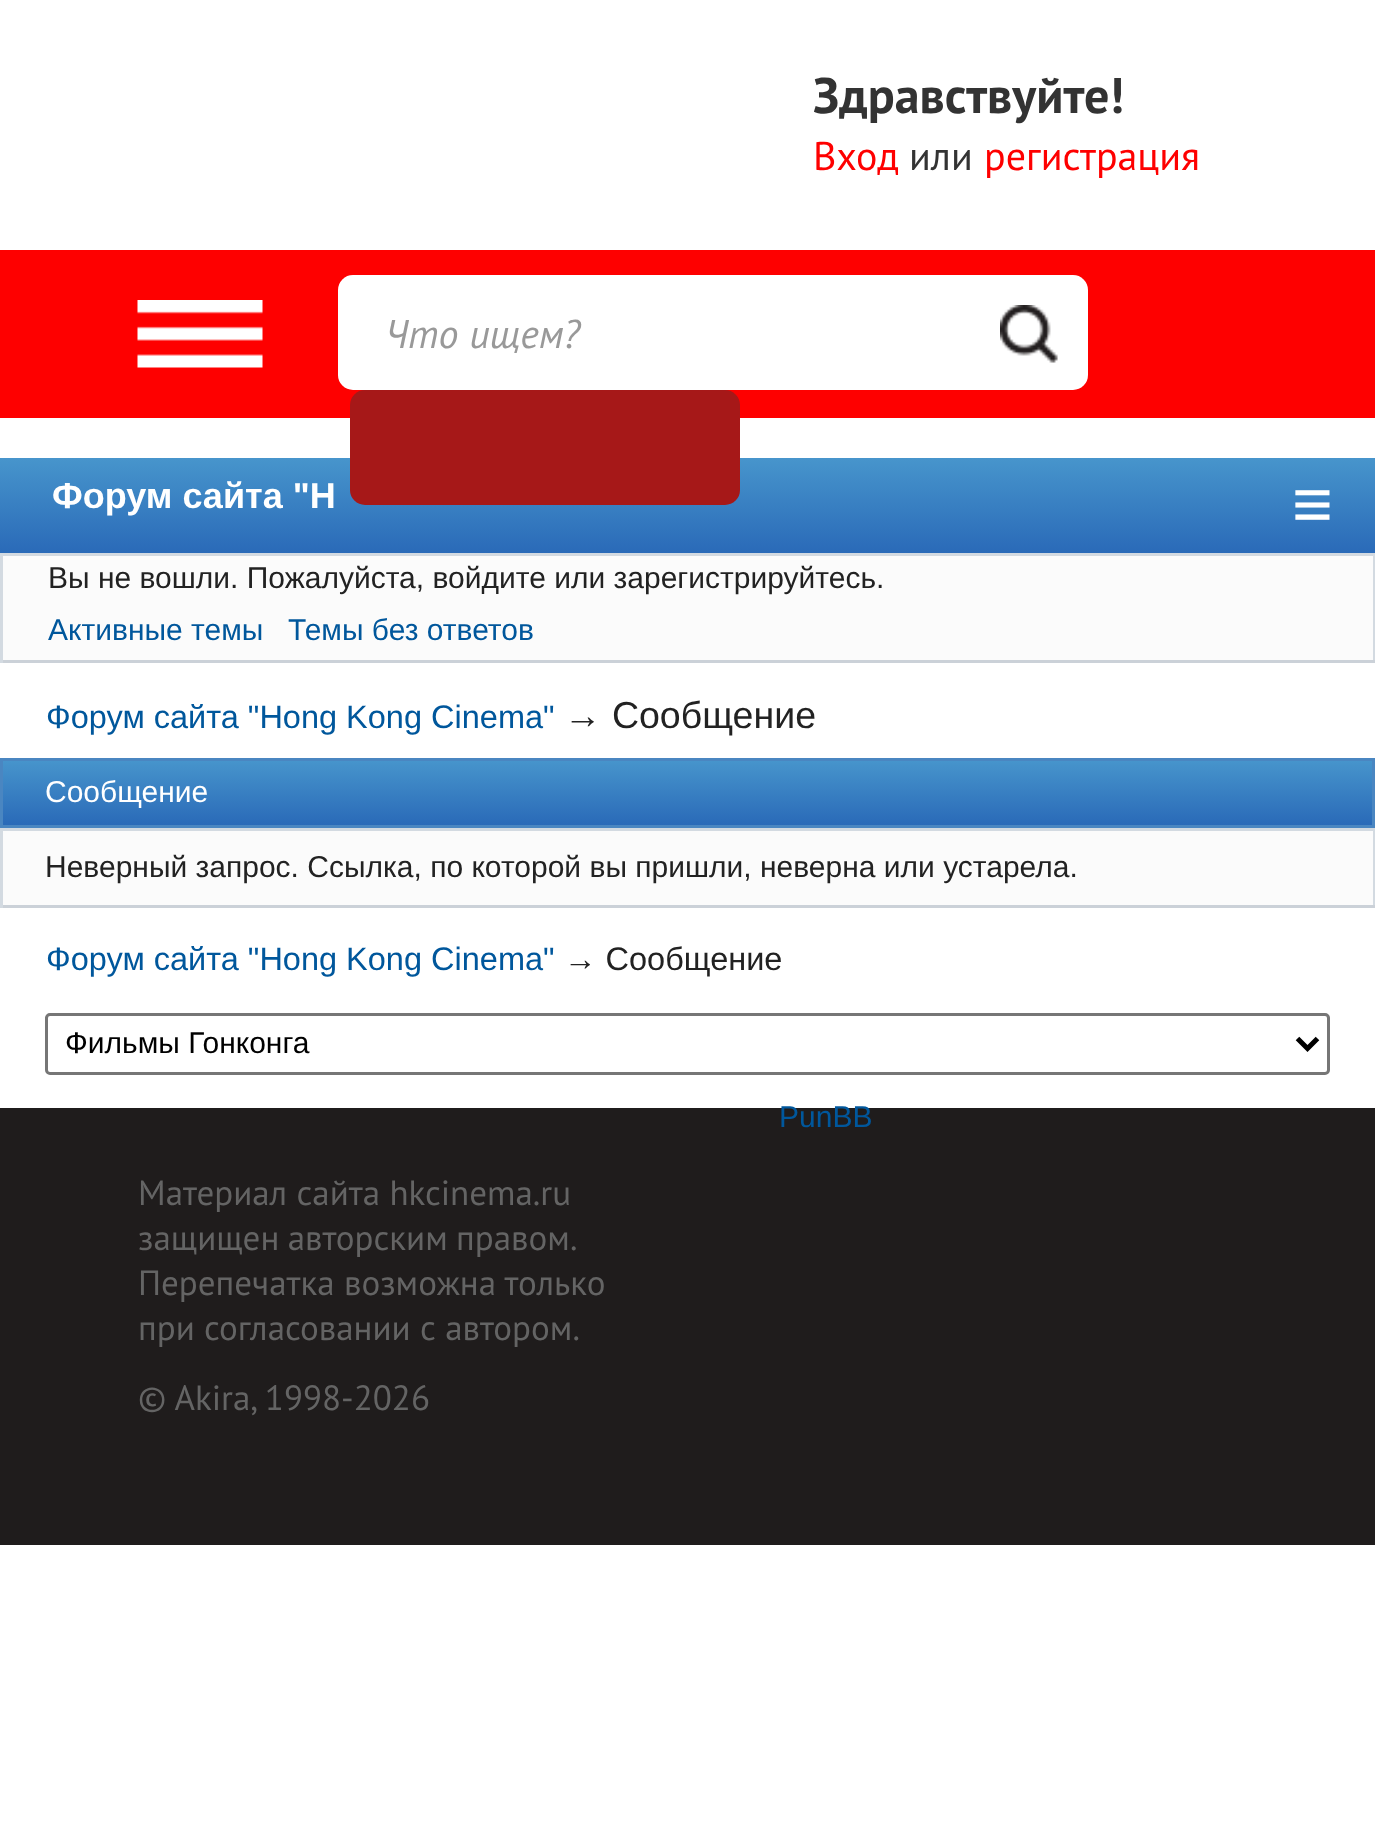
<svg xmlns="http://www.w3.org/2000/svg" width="1375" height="1827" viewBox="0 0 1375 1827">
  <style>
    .t1 { font: bold 50px PT Sans; fill: #333; }
    .t2 { font: 40px PT Sans; fill: #fe0000; }
    .t3 { font: 40px PT Sans; fill: #333; }
    .t4 { font: italic 40px PT Sans; fill: #999; }
    .t5 { font: bold 36px Liberation Sans; fill: #fff; }
    .t6 { font: 70px Liberation Sans; fill: #fff; }
    .t7 { font: 30px Liberation Sans; fill: #222; }
    .t8 { font: 30px Liberation Sans; fill: #00579c; }
    .t9 { font: 32.5px Liberation Sans; fill: #00579c; }
    .t10 { font: 37.5px Liberation Sans; fill: #222; }
    .t11 { font: 30px Liberation Sans; fill: #fff; }
    .t12 { font: 32.5px Liberation Sans; fill: #222; }
    .t13 { font: 30px Liberation Sans; fill: #000; }
    .t14 { font: 35px PT Sans; fill: #646464; }
  </style>
  <defs>
    <linearGradient id="g1" gradientUnits="userSpaceOnUse" x1="688" y1="553" x2="688" y2="458"><stop offset="0" stop-color="#2a6ab8"/><stop offset="1" stop-color="#4795cc"/></linearGradient>
    <linearGradient id="g2" gradientUnits="userSpaceOnUse" x1="688" y1="825" x2="688" y2="760"><stop offset="0" stop-color="#2a6ab8"/><stop offset="1" stop-color="#4795cc"/></linearGradient>
  </defs>
  <rect width="100%" height="100%" fill="#fff"/>
  <text x="813" y="113" class="t1">Здравствуйте!</text>
  <text x="813" y="170" class="t2">Вход</text>
  <text x="909" y="170" class="t3">или</text>
  <text x="984" y="170" class="t2">регистрация</text>
  <rect x="0" y="250" width="1375" height="168" fill="#fe0000"/>
  <image x="137" y="300" width="126" height="68" href="images/1.png"/>
  <rect x="338" y="275" width="750" height="115" rx="15" fill="#fff"/>
  <image x="1000" y="305" width="58" height="58" href="images/2.png"/>
  <text x="385" y="348" class="t4">Что ищем?</text>
  <rect x="0" y="458" width="1375" height="95" fill="url(#g1)"/>
  <rect x="350" y="390" width="390" height="115" rx="15" fill="#a61818"/>
  <text x="52" y="508" class="t5">Форум сайта "H</text>
  <text x="1292" y="528" class="t6">≡</text>
  <rect x="3" y="556" width="1370" height="104" fill="#fbfbfb"/>
  <rect x="0" y="553" width="1375" height="3" fill="#d3dae1"/>
  <rect x="1373" y="553" width="2" height="110" fill="#d3dae1"/>
  <rect x="0" y="660" width="1375" height="3" fill="#cbd1d8"/>
  <rect x="0" y="553" width="3" height="110" fill="#d3dae1"/>
  <text x="48" y="588" class="t7">Вы не вошли. Пожалуйста, войдите или зарегистрируйтесь.</text>
  <text x="48" y="640" class="t8">Активные темы</text>
  <text x="288" y="640" class="t8">Темы без ответов</text>
  <text x="46" y="728" class="t9">Форум сайта "Hong Kong Cinema"</text>
  <text x="564" y="728" class="t10">→ Сообщение</text>
  <rect x="3" y="761" width="1369" height="64" fill="url(#g2)"/>
  <rect x="1.5" y="759.5" width="1372" height="67" fill="none" stroke="#4a86c1" stroke-width="3"/>
  <text x="45" y="802" class="t11">Сообщение</text>
  <rect x="3" y="831" width="1370" height="74" fill="#fbfbfb"/>
  <rect x="0" y="828" width="1375" height="3" fill="#d3dae1"/>
  <rect x="1373" y="828" width="2" height="80" fill="#d3dae1"/>
  <rect x="0" y="905" width="1375" height="3" fill="#cbd1d8"/>
  <rect x="0" y="828" width="3" height="80" fill="#d3dae1"/>
  <text x="45" y="877" class="t7">Неверный запрос. Ссылка, по которой вы пришли, неверна или устарела.</text>
  <text x="46" y="970" class="t9">Форум сайта "Hong Kong Cinema"</text>
  <text x="564" y="970" class="t12">→ Сообщение</text>
  <rect x="46.5" y="1014.5" width="1282" height="59" rx="3.5" fill="none" stroke="#767676" stroke-width="3"/>
  <path d="M1297.5 1038.5L1307.5 1048.5L1317.5 1038.5" fill="none" stroke="#000" stroke-width="5"/>
  <text x="65" y="1053" class="t13">Фильмы Гонконга</text>
  <rect x="0" y="1108" width="1375" height="437" fill="#1f1c1c"/>
  <text x="779" y="1127" class="t8">PunBB</text>
  <text x="138" y="1205" class="t14">Материал сайта hkcinema.ru</text>
  <text x="138" y="1250" word-spacing="-1" class="t14">защищен авторским правом.</text>
  <text x="138" y="1295" class="t14">Перепечатка возможна только</text>
  <text x="138" y="1340" class="t14">при согласовании с автором.</text>
  <text x="138" y="1410" class="t14">© Akira, 1998-2026</text>
</svg>
